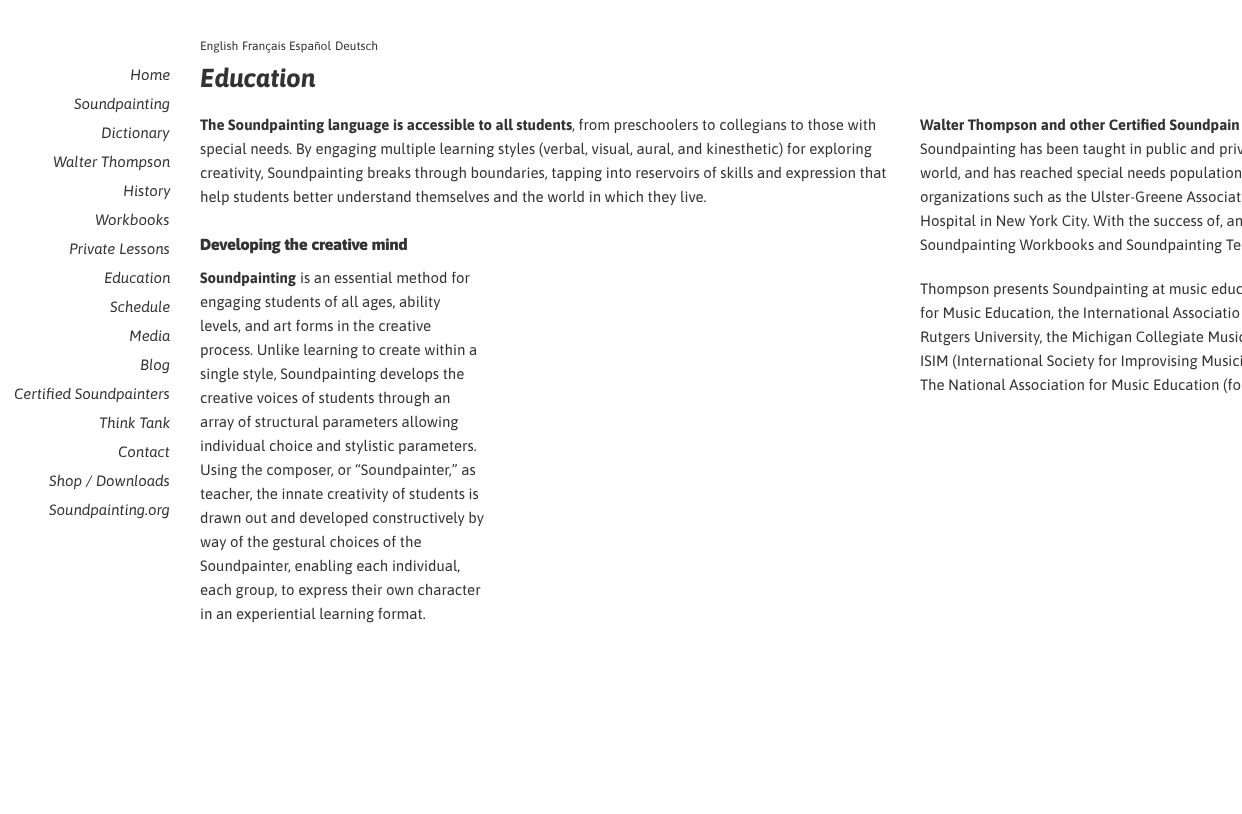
<svg xmlns="http://www.w3.org/2000/svg" width="1242" height="814" viewBox="0 0 1242 814">
  <style>
    .t1 { font: 12px Asap; fill: #333; }
    .t2 { font: italic 15px Asap; fill: #333; }
    .t3 { font: italic bold 26px Asap; fill: #333; }
    .t4 { font: bold 15px Asap; fill: #333; }
    .t5 { font: 15px Asap; fill: #333; }
    .t6 { font: 900 16px Asap; fill: #333; }
  </style>
  <rect width="100%" height="100%" fill="#fff"/>
  <text x="200" y="50" class="t1">English</text>
  <text x="242" y="50" class="t1">Français</text>
  <text x="289" y="50" class="t1">Español</text>
  <text x="335" y="50" class="t1">Deutsch</text>
  <text x="130" y="80" class="t2">Home</text>
  <text x="74" y="109" class="t2">Soundpainting</text>
  <text x="101" y="138" class="t2">Dictionary</text>
  <text x="53" y="167" class="t2">Walter Thompson</text>
  <text x="123" y="196" class="t2">History</text>
  <text x="95" y="225" class="t2">Workbooks</text>
  <text x="69" y="254" class="t2">Private Lessons</text>
  <text x="104" y="283" class="t2">Education</text>
  <text x="110" y="312" class="t2">Schedule</text>
  <text x="129" y="341" class="t2">Media</text>
  <text x="140" y="370" class="t2">Blog</text>
  <text x="14" y="399" class="t2">Certified Soundpainters</text>
  <text x="99" y="428" class="t2">Think Tank</text>
  <text x="118" y="457" class="t2">Contact</text>
  <text x="49" y="486" class="t2">Shop / Downloads</text>
  <text x="49" y="515" class="t2">Soundpainting.org</text>
  <text x="200" y="87" class="t3">Education</text>
  <text x="200" y="130" class="t4">The Soundpainting language is accessible to all students</text>
  <text x="572" y="130" class="t5">, from preschoolers to collegians to those with</text>
  <text x="200" y="154" class="t5">special needs. By engaging multiple learning styles (verbal, visual, aural, and kinesthetic) for exploring</text>
  <text x="200" y="178" class="t5">creativity, Soundpainting breaks through boundaries, tapping into reservoirs of skills and expression that</text>
  <text x="200" y="202" class="t5">help students better understand themselves and the world in which they live.</text>
  <text x="200" y="250" class="t6">Developing the creative mind</text>
  <text x="200" y="283" class="t4">Soundpainting</text>
  <text x="300" y="283" class="t5">is an essential method for</text>
  <text x="200" y="307" class="t5">engaging students of all ages, ability</text>
  <text x="200" y="331" class="t5">levels, and art forms in the creative</text>
  <text x="200" y="355" class="t5">process. Unlike learning to create within a</text>
  <text x="200" y="379" class="t5">single style, Soundpainting develops the</text>
  <text x="200" y="403" class="t5">creative voices of students through an</text>
  <text x="200" y="427" class="t5">array of structural parameters allowing</text>
  <text x="200" y="451" class="t5">individual choice and stylistic parameters.</text>
  <text x="200" y="475" class="t5">Using the composer, or “Soundpainter,” as</text>
  <text x="200" y="499" class="t5">teacher, the innate creativity of students is</text>
  <text x="200" y="523" class="t5">drawn out and developed constructively by</text>
  <text x="200" y="547" class="t5">way of the gestural choices of the</text>
  <text x="200" y="571" class="t5">Soundpainter, enabling each individual,</text>
  <text x="200" y="595" class="t5">each group, to express their own character</text>
  <text x="200" y="619" class="t5">in an experiential learning format.</text>
  <text x="920" y="130" class="t4">Walter Thompson and other Certified Soundpain</text>
  <text x="920" y="154" class="t5">Soundpainting has been taught in public and priv</text>
  <text x="920" y="178" class="t5">world, and has reached special needs population</text>
  <text x="920" y="202" class="t5">organizations such as the Ulster-Greene Associat</text>
  <text x="920" y="226" class="t5">Hospital in New York City. With the success of, an</text>
  <text x="920" y="250" class="t5">Soundpainting Workbooks and Soundpainting Te</text>
  <text x="920" y="294" class="t5">Thompson presents Soundpainting at music educ</text>
  <text x="920" y="318" class="t5">for Music Education, the International Associatio</text>
  <text x="920" y="342" class="t5">Rutgers University, the Michigan Collegiate Music</text>
  <text x="920" y="366" class="t5">ISIM (International Society for Improvising Musici</text>
  <text x="920" y="390" class="t5">The National Association for Music Education (fo</text>
</svg>
